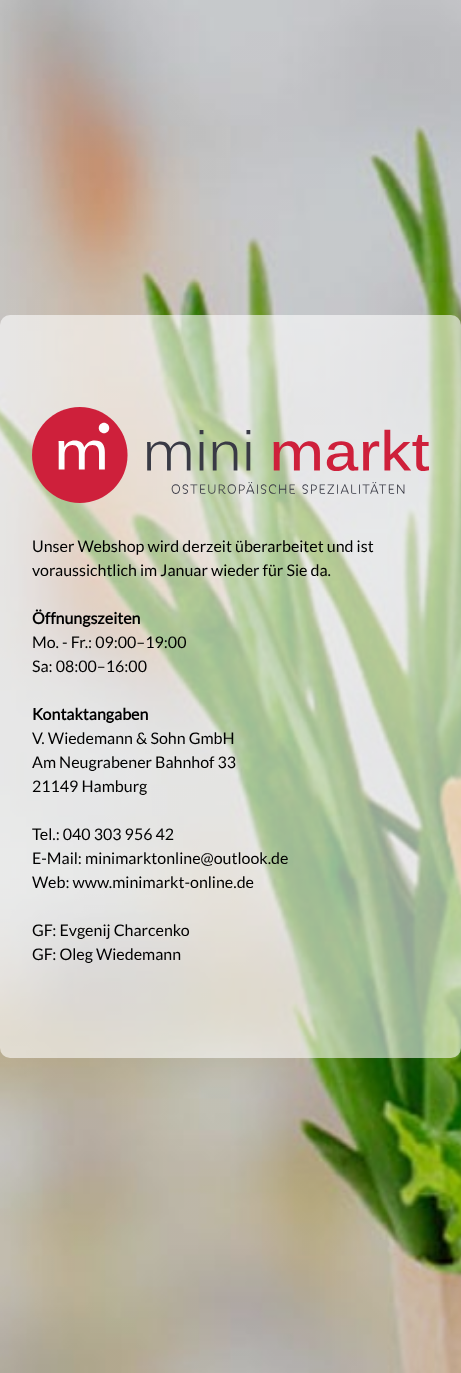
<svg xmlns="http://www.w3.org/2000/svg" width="461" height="1373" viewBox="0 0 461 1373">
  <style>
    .t1 { font: 16px Lato; fill: #000; }
    .t2 { font: bold 16px Lato; fill: #000; }
  </style>
  <rect width="100%" height="100%" fill="#fff"/>
  <image x="0" y="0" width="461" height="1373" href="images/1.png"/>
  <rect x="0" y="315" width="461" height="743" rx="10" fill="#ffffff94"/>
  <image x="32" y="407" width="397" height="96" href="images/2.png"/>
  <text x="32" y="552" class="t1">Unser Webshop wird derzeit überarbeitet und ist</text>
  <text x="32" y="576" class="t1">voraussichtlich im Januar wieder für Sie da.</text>
  <text x="32" y="624" class="t2">Öffnungszeiten</text>
  <text x="32" y="648" class="t1">Mo. - Fr.: 09:00–19:00</text>
  <text x="32" y="672" class="t1">Sa: 08:00–16:00</text>
  <text x="32" y="720" class="t2">Kontaktangaben</text>
  <text x="32" y="744" class="t1">V. Wiedemann &amp; Sohn GmbH</text>
  <text x="32" y="768" class="t1">Am Neugrabener Bahnhof 33</text>
  <text x="32" y="792" class="t1">21149 Hamburg</text>
  <text x="32" y="840" class="t1">Tel.: 040 303 956 42</text>
  <text x="32" y="864" class="t1">E-Mail: minimarktonline@outlook.de</text>
  <text x="32" y="888" class="t1">Web: www.minimarkt-online.de</text>
  <text x="32" y="936" class="t1">GF: Evgenij Charcenko</text>
  <text x="32" y="960" class="t1">GF: Oleg Wiedemann</text>
</svg>
